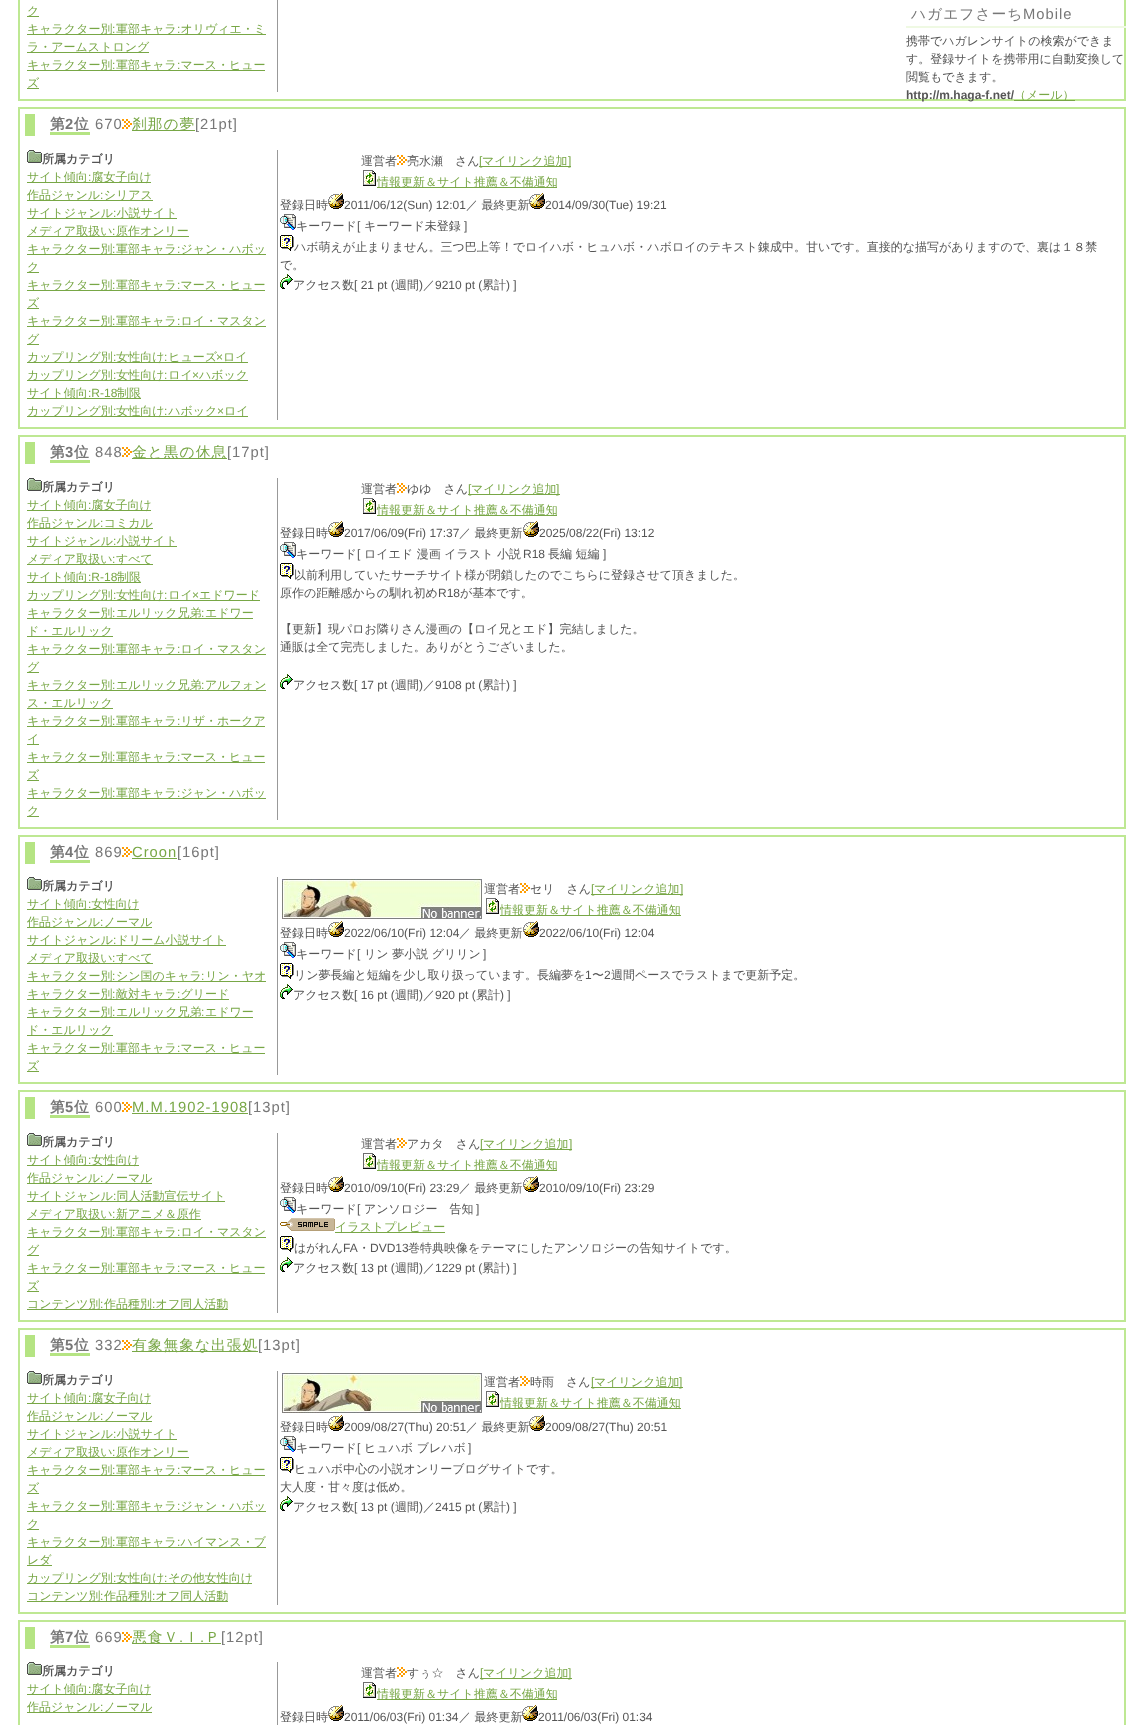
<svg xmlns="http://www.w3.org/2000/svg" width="1126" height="1725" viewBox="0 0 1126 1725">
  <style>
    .t1 { font: 500 12px WenQuanYi Zen Hei; fill: #78a746; }
    .t2 { font: 12px Liberation Sans; fill: #78a746; }
    .t3 { font: bold 14.75px WenQuanYi Zen Hei; letter-spacing: 1px; fill: #777; }
    .t4 { font: bold 14.75px Liberation Sans; letter-spacing: 1px; fill: #777; }
    .t5 { font: 14.75px Liberation Sans; letter-spacing: 1px; fill: #777; }
    .t6 { font: 500 14.75px WenQuanYi Zen Hei; letter-spacing: 1px; fill: #78a746; }
    .t7 { font: bold 12px WenQuanYi Zen Hei; fill: #555; }
    .t8 { font: 500 12px WenQuanYi Zen Hei; fill: #555; }
    .t9 { font: 12px Liberation Sans; fill: #555; }
    .t10 { font: 14.75px Liberation Sans; letter-spacing: 1px; fill: #78a746; }
    .t11 { font: 500 14.75px WenQuanYi Zen Hei; letter-spacing: 1px; fill: #777; }
    .t12 { font: bold 12px Liberation Sans; fill: #555; }
  </style>
  <rect width="100%" height="100%" fill="#fff"/>
  <rect x="19" y="-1" width="1106" height="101" fill="none" stroke="#bee893" stroke-width="2"/>
  <rect x="277" y="0" width="1" height="92" fill="#999"/>
  <rect x="27" y="16" width="12" height="1" fill="#78a746"/>
  <text x="27" y="15" class="t1">ク</text>
  <rect x="27" y="34" width="239" height="1" fill="#78a746"/>
  <text x="27" y="33" class="t1">キャラクター別 軍部キャラ オリヴィエ・ミ</text>
  <text x="112" y="33" class="t2">:</text>
  <text x="177" y="33" class="t2">:</text>
  <rect x="27" y="52" width="122" height="1" fill="#78a746"/>
  <text x="27" y="51" class="t1">ラ・アームストロング</text>
  <rect x="27" y="70" width="238" height="1" fill="#78a746"/>
  <text x="27" y="69" class="t1">キャラクター別 軍部キャラ マース・ヒュー</text>
  <text x="112" y="69" class="t2">:</text>
  <text x="177" y="69" class="t2">:</text>
  <text x="27" y="87" class="t1">ズ</text>
  <rect x="27" y="88" width="12" height="1" fill="#78a746"/>
  <rect x="19" y="108" width="1106" height="320" fill="none" stroke="#bee893" stroke-width="2"/>
  <rect x="25" y="114" width="10" height="22" fill="#b5e483"/>
  <text x="50" y="129" class="t3">第</text>
  <rect x="50" y="132" width="40" height="3" fill="#b5e483"/>
  <text x="65" y="129" class="t4">2</text>
  <text x="74" y="129" class="t3">位</text>
  <text x="95" y="129" class="t5">670</text>
  <image x="122" y="119" width="10" height="10" href="images/1.png"/>
  <rect x="132" y="130" width="63" height="1" fill="#78a746"/>
  <text x="132" y="129" class="t6">刹那の夢</text>
  <text x="195" y="129" class="t5">[21pt]</text>
  <rect x="277" y="150" width="1" height="270" fill="#999"/>
  <image x="27" y="150" width="15" height="13" href="images/2.png"/>
  <text x="42" y="163" class="t7">所属カテゴリ</text>
  <rect x="27" y="182" width="124" height="1" fill="#78a746"/>
  <text x="27" y="181" class="t1">サイト傾向 腐女子向け</text>
  <text x="88" y="181" class="t2">:</text>
  <rect x="27" y="200" width="126" height="1" fill="#78a746"/>
  <text x="27" y="199" class="t1">作品ジャンル シリアス</text>
  <text x="100" y="199" class="t2">:</text>
  <rect x="27" y="218" width="150" height="1" fill="#78a746"/>
  <text x="27" y="217" class="t1">サイトジャンル 小説サイト</text>
  <text x="113" y="217" class="t2">:</text>
  <rect x="27" y="236" width="162" height="1" fill="#78a746"/>
  <text x="27" y="235" class="t1">メディア取扱い 原作オンリー</text>
  <text x="112" y="235" class="t2">:</text>
  <rect x="27" y="254" width="239" height="1" fill="#78a746"/>
  <text x="27" y="253" class="t1">キャラクター別 軍部キャラ ジャン・ハボッ</text>
  <text x="112" y="253" class="t2">:</text>
  <text x="177" y="253" class="t2">:</text>
  <rect x="27" y="272" width="12" height="1" fill="#78a746"/>
  <text x="27" y="271" class="t1">ク</text>
  <rect x="27" y="290" width="238" height="1" fill="#78a746"/>
  <text x="27" y="289" class="t1">キャラクター別 軍部キャラ マース・ヒュー</text>
  <text x="112" y="289" class="t2">:</text>
  <text x="177" y="289" class="t2">:</text>
  <text x="27" y="307" class="t1">ズ</text>
  <rect x="27" y="308" width="12" height="1" fill="#78a746"/>
  <rect x="27" y="326" width="239" height="1" fill="#78a746"/>
  <text x="27" y="325" class="t1">キャラクター別 軍部キャラ ロイ・マスタン</text>
  <text x="112" y="325" class="t2">:</text>
  <text x="177" y="325" class="t2">:</text>
  <rect x="27" y="344" width="12" height="1" fill="#78a746"/>
  <text x="27" y="343" class="t1">グ</text>
  <rect x="27" y="362" width="221" height="1" fill="#78a746"/>
  <text x="27" y="361" class="t1">カップリング別 女性向け ヒューズ</text>
  <text x="223" y="361" class="t1">ロイ</text>
  <text x="113" y="361" class="t2">:</text>
  <text x="164" y="361" class="t2">:</text>
  <text x="216" y="361" class="t2">×</text>
  <rect x="27" y="380" width="221" height="1" fill="#78a746"/>
  <text x="27" y="379" class="t1">カップリング別 女性向け ロイ</text>
  <text x="199" y="379" class="t1">ハボック</text>
  <text x="113" y="379" class="t2">:</text>
  <text x="164" y="379" class="t2">:</text>
  <text x="192" y="379" class="t2">×</text>
  <rect x="27" y="398" width="114" height="1" fill="#78a746"/>
  <text x="27" y="397" class="t1">サイト傾向</text>
  <text x="88" y="397" class="t2">:R-18</text>
  <text x="117" y="397" class="t1">制限</text>
  <rect x="27" y="416" width="221" height="1" fill="#78a746"/>
  <text x="27" y="415" class="t1">カップリング別 女性向け ハボック</text>
  <text x="224" y="415" class="t1">ロイ</text>
  <text x="113" y="415" class="t2">:</text>
  <text x="164" y="415" class="t2">:</text>
  <text x="217" y="415" class="t2">×</text>
  <text x="361" y="165" class="t8">運営者</text>
  <image x="397" y="155" width="10" height="10" href="images/1.png"/>
  <text x="407" y="165" class="t8">亮水瀬　さん</text>
  <rect x="479" y="166" width="92" height="1" fill="#78a746"/>
  <text x="479" y="165" class="t2">[</text>
  <text x="482" y="165" class="t1">マイリンク追加</text>
  <text x="568" y="165" class="t2">]</text>
  <image x="363" y="170" width="13" height="16" href="images/3.png"/>
  <rect x="377" y="187" width="180" height="1" fill="#78a746"/>
  <text x="377" y="186" class="t1">情報更新＆サイト推薦＆不備通知</text>
  <text x="280" y="209" class="t8">登録日時</text>
  <image x="328" y="193" width="16" height="16" href="images/4.png"/>
  <text x="344" y="209" class="t9">2011/06/12(Sun) 12:01</text>
  <text x="466" y="209" class="t8">／ 最終更新</text>
  <image x="529" y="193" width="16" height="16" href="images/4.png"/>
  <text x="545" y="209" class="t9">2014/09/30(Tue) 19:21</text>
  <image x="280" y="214" width="16" height="16" href="images/5.png"/>
  <text x="296" y="230" class="t8">キーワード</text>
  <text x="357" y="230" class="t9">[</text>
  <text x="364" y="230" class="t8">キーワード未登録</text>
  <text x="464" y="230" class="t9">]</text>
  <image x="280" y="235" width="14" height="16" href="images/6.png"/>
  <text x="294" y="251" class="t8">ハボ萌えが止まりません。三つ巴上等！でロイハボ・ヒュハボ・ハボロイのテキスト錬成中。甘いです。直接的な描写がありますので、裏は１８禁</text>
  <text x="280" y="269" class="t8">で。</text>
  <image x="280" y="274" width="13" height="15" href="images/7.png"/>
  <text x="293" y="289" class="t8">アクセス数</text>
  <text x="354" y="289" class="t9">[ 21 pt (</text>
  <text x="395" y="289" class="t8">週間</text>
  <text x="419" y="289" class="t9">)</text>
  <text x="423" y="289" class="t8">／</text>
  <text x="435" y="289" class="t9">9210 pt (</text>
  <text x="482" y="289" class="t8">累計</text>
  <text x="506" y="289" class="t9">) ]</text>
  <rect x="19" y="436" width="1106" height="392" fill="none" stroke="#bee893" stroke-width="2"/>
  <rect x="25" y="442" width="10" height="22" fill="#b5e483"/>
  <text x="50" y="457" class="t3">第</text>
  <rect x="50" y="460" width="40" height="3" fill="#b5e483"/>
  <text x="65" y="457" class="t4">3</text>
  <text x="74" y="457" class="t3">位</text>
  <text x="95" y="457" class="t5">848</text>
  <image x="122" y="447" width="10" height="10" href="images/1.png"/>
  <rect x="132" y="458" width="95" height="1" fill="#78a746"/>
  <text x="132" y="457" class="t6">金と黒の休息</text>
  <text x="227" y="457" class="t5">[17pt]</text>
  <rect x="277" y="478" width="1" height="342" fill="#999"/>
  <image x="27" y="478" width="15" height="13" href="images/2.png"/>
  <text x="42" y="491" class="t7">所属カテゴリ</text>
  <rect x="27" y="510" width="124" height="1" fill="#78a746"/>
  <text x="27" y="509" class="t1">サイト傾向 腐女子向け</text>
  <text x="88" y="509" class="t2">:</text>
  <rect x="27" y="528" width="126" height="1" fill="#78a746"/>
  <text x="27" y="527" class="t1">作品ジャンル コミカル</text>
  <text x="100" y="527" class="t2">:</text>
  <rect x="27" y="546" width="150" height="1" fill="#78a746"/>
  <text x="27" y="545" class="t1">サイトジャンル 小説サイト</text>
  <text x="113" y="545" class="t2">:</text>
  <rect x="27" y="564" width="126" height="1" fill="#78a746"/>
  <text x="27" y="563" class="t1">メディア取扱い すべて</text>
  <text x="112" y="563" class="t2">:</text>
  <rect x="27" y="582" width="114" height="1" fill="#78a746"/>
  <text x="27" y="581" class="t1">サイト傾向</text>
  <text x="88" y="581" class="t2">:R-18</text>
  <text x="117" y="581" class="t1">制限</text>
  <rect x="27" y="600" width="233" height="1" fill="#78a746"/>
  <text x="27" y="599" class="t1">カップリング別 女性向け ロイ</text>
  <text x="199" y="599" class="t1">エドワード</text>
  <text x="113" y="599" class="t2">:</text>
  <text x="164" y="599" class="t2">:</text>
  <text x="192" y="599" class="t2">×</text>
  <rect x="27" y="618" width="226" height="1" fill="#78a746"/>
  <text x="27" y="617" class="t1">キャラクター別 エルリック兄弟 エドワー</text>
  <text x="112" y="617" class="t2">:</text>
  <text x="201" y="617" class="t2">:</text>
  <rect x="27" y="636" width="86" height="1" fill="#78a746"/>
  <text x="27" y="635" class="t1">ド・エルリック</text>
  <rect x="27" y="654" width="239" height="1" fill="#78a746"/>
  <text x="27" y="653" class="t1">キャラクター別 軍部キャラ ロイ・マスタン</text>
  <text x="112" y="653" class="t2">:</text>
  <text x="177" y="653" class="t2">:</text>
  <rect x="27" y="672" width="12" height="1" fill="#78a746"/>
  <text x="27" y="671" class="t1">グ</text>
  <rect x="27" y="690" width="239" height="1" fill="#78a746"/>
  <text x="27" y="689" class="t1">キャラクター別 エルリック兄弟 アルフォン</text>
  <text x="112" y="689" class="t2">:</text>
  <text x="201" y="689" class="t2">:</text>
  <rect x="27" y="708" width="86" height="1" fill="#78a746"/>
  <text x="27" y="707" class="t1">ス・エルリック</text>
  <rect x="27" y="726" width="238" height="1" fill="#78a746"/>
  <text x="27" y="725" class="t1">キャラクター別 軍部キャラ リザ・ホークア</text>
  <text x="112" y="725" class="t2">:</text>
  <text x="177" y="725" class="t2">:</text>
  <rect x="27" y="744" width="12" height="1" fill="#78a746"/>
  <text x="27" y="743" class="t1">イ</text>
  <rect x="27" y="762" width="238" height="1" fill="#78a746"/>
  <text x="27" y="761" class="t1">キャラクター別 軍部キャラ マース・ヒュー</text>
  <text x="112" y="761" class="t2">:</text>
  <text x="177" y="761" class="t2">:</text>
  <text x="27" y="779" class="t1">ズ</text>
  <rect x="27" y="780" width="12" height="1" fill="#78a746"/>
  <rect x="27" y="798" width="239" height="1" fill="#78a746"/>
  <text x="27" y="797" class="t1">キャラクター別 軍部キャラ ジャン・ハボッ</text>
  <text x="112" y="797" class="t2">:</text>
  <text x="177" y="797" class="t2">:</text>
  <rect x="27" y="816" width="12" height="1" fill="#78a746"/>
  <text x="27" y="815" class="t1">ク</text>
  <text x="361" y="493" class="t8">運営者</text>
  <image x="397" y="483" width="10" height="10" href="images/1.png"/>
  <text x="407" y="493" class="t8">ゆゆ　さん</text>
  <rect x="468" y="494" width="92" height="1" fill="#78a746"/>
  <text x="468" y="493" class="t2">[</text>
  <text x="471" y="493" class="t1">マイリンク追加</text>
  <text x="556" y="493" class="t2">]</text>
  <image x="363" y="498" width="13" height="16" href="images/3.png"/>
  <rect x="377" y="515" width="180" height="1" fill="#78a746"/>
  <text x="377" y="514" class="t1">情報更新＆サイト推薦＆不備通知</text>
  <text x="280" y="537" class="t8">登録日時</text>
  <image x="328" y="521" width="16" height="16" href="images/4.png"/>
  <text x="344" y="537" class="t9">2017/06/09(Fri) 17:37</text>
  <text x="459" y="537" class="t8">／ 最終更新</text>
  <image x="523" y="521" width="16" height="16" href="images/4.png"/>
  <text x="539" y="537" class="t9">2025/08/22(Fri) 13:12</text>
  <image x="280" y="542" width="16" height="16" href="images/5.png"/>
  <text x="296" y="558" class="t8">キーワード</text>
  <text x="357" y="558" class="t9">[</text>
  <text x="364" y="558" class="t8">ロイエド 漫画 イラスト 小説</text>
  <text x="523" y="558" class="t9">R18</text>
  <text x="548" y="558" class="t8">長編 短編</text>
  <text x="603" y="558" class="t9">]</text>
  <image x="280" y="563" width="14" height="16" href="images/6.png"/>
  <text x="294" y="579" class="t8">以前利用していたサーチサイト様が閉鎖したのでこちらに登録させて頂きました。</text>
  <text x="280" y="597" class="t8">原作の距離感からの馴れ初め</text>
  <text x="438" y="597" class="t9">R18</text>
  <text x="460" y="597" class="t8">が基本です。</text>
  <text x="280" y="633" class="t8">【更新】現パロお隣りさん漫画の【ロイ兄とエド】完結しました。</text>
  <text x="280" y="651" class="t8">通販は全て完売しました。ありがとうございました。</text>
  <image x="280" y="674" width="13" height="15" href="images/7.png"/>
  <text x="293" y="689" class="t8">アクセス数</text>
  <text x="354" y="689" class="t9">[ 17 pt (</text>
  <text x="395" y="689" class="t8">週間</text>
  <text x="419" y="689" class="t9">)</text>
  <text x="423" y="689" class="t8">／</text>
  <text x="435" y="689" class="t9">9108 pt (</text>
  <text x="482" y="689" class="t8">累計</text>
  <text x="506" y="689" class="t9">) ]</text>
  <rect x="19" y="836" width="1106" height="247" fill="none" stroke="#bee893" stroke-width="2"/>
  <rect x="25" y="842" width="10" height="22" fill="#b5e483"/>
  <text x="50" y="857" class="t3">第</text>
  <rect x="50" y="860" width="40" height="3" fill="#b5e483"/>
  <text x="65" y="857" class="t4">4</text>
  <text x="74" y="857" class="t3">位</text>
  <text x="95" y="857" class="t5">869</text>
  <image x="122" y="847" width="10" height="10" href="images/1.png"/>
  <text x="132" y="857" class="t10">Croon</text>
  <rect x="132" y="858" width="45" height="1" fill="#78a746"/>
  <text x="177" y="857" class="t5">[16pt]</text>
  <rect x="277" y="877" width="1" height="198" fill="#999"/>
  <image x="27" y="877" width="15" height="13" href="images/2.png"/>
  <text x="42" y="890" class="t7">所属カテゴリ</text>
  <rect x="27" y="909" width="112" height="1" fill="#78a746"/>
  <text x="27" y="908" class="t1">サイト傾向 女性向け</text>
  <text x="88" y="908" class="t2">:</text>
  <rect x="27" y="927" width="125" height="1" fill="#78a746"/>
  <text x="27" y="926" class="t1">作品ジャンル ノーマル</text>
  <text x="100" y="926" class="t2">:</text>
  <rect x="27" y="945" width="199" height="1" fill="#78a746"/>
  <text x="27" y="944" class="t1">サイトジャンル ドリーム小説サイト</text>
  <text x="113" y="944" class="t2">:</text>
  <rect x="27" y="963" width="126" height="1" fill="#78a746"/>
  <text x="27" y="962" class="t1">メディア取扱い すべて</text>
  <text x="112" y="962" class="t2">:</text>
  <rect x="27" y="981" width="239" height="1" fill="#78a746"/>
  <text x="27" y="980" class="t1">キャラクター別 シン国のキャラ リン・ヤオ</text>
  <text x="112" y="980" class="t2">:</text>
  <text x="201" y="980" class="t2">:</text>
  <rect x="27" y="999" width="202" height="1" fill="#78a746"/>
  <text x="27" y="998" class="t1">キャラクター別 敵対キャラ グリード</text>
  <text x="112" y="998" class="t2">:</text>
  <text x="177" y="998" class="t2">:</text>
  <rect x="27" y="1017" width="226" height="1" fill="#78a746"/>
  <text x="27" y="1016" class="t1">キャラクター別 エルリック兄弟 エドワー</text>
  <text x="112" y="1016" class="t2">:</text>
  <text x="201" y="1016" class="t2">:</text>
  <rect x="27" y="1035" width="86" height="1" fill="#78a746"/>
  <text x="27" y="1034" class="t1">ド・エルリック</text>
  <rect x="27" y="1053" width="238" height="1" fill="#78a746"/>
  <text x="27" y="1052" class="t1">キャラクター別 軍部キャラ マース・ヒュー</text>
  <text x="112" y="1052" class="t2">:</text>
  <text x="177" y="1052" class="t2">:</text>
  <text x="27" y="1070" class="t1">ズ</text>
  <rect x="27" y="1071" width="12" height="1" fill="#78a746"/>
  <image x="282" y="879" width="200" height="40" href="images/8.png"/>
  <text x="484" y="893" class="t8">運営者</text>
  <image x="520" y="883" width="10" height="10" href="images/1.png"/>
  <text x="530" y="893" class="t8">セリ　さん</text>
  <rect x="591" y="894" width="92" height="1" fill="#78a746"/>
  <text x="591" y="893" class="t2">[</text>
  <text x="594" y="893" class="t1">マイリンク追加</text>
  <text x="680" y="893" class="t2">]</text>
  <image x="486" y="898" width="13" height="16" href="images/3.png"/>
  <rect x="500" y="915" width="181" height="1" fill="#78a746"/>
  <text x="500" y="914" class="t1">情報更新＆サイト推薦＆不備通知</text>
  <text x="280" y="937" class="t8">登録日時</text>
  <image x="328" y="921" width="16" height="16" href="images/4.png"/>
  <text x="344" y="937" class="t9">2022/06/10(Fri) 12:04</text>
  <text x="459" y="937" class="t8">／ 最終更新</text>
  <image x="523" y="921" width="16" height="16" href="images/4.png"/>
  <text x="539" y="937" class="t9">2022/06/10(Fri) 12:04</text>
  <image x="280" y="942" width="16" height="16" href="images/5.png"/>
  <text x="296" y="958" class="t8">キーワード</text>
  <text x="357" y="958" class="t9">[</text>
  <text x="364" y="958" class="t8">リン 夢小説 グリリン</text>
  <text x="483" y="958" class="t9">]</text>
  <image x="280" y="963" width="14" height="16" href="images/6.png"/>
  <text x="294" y="979" class="t8">リン夢長編と短編を少し取り扱っています。長編夢を</text>
  <text x="585" y="979" class="t9">1</text>
  <text x="592" y="979" class="t8">〜</text>
  <text x="604" y="979" class="t9">2</text>
  <text x="611" y="979" class="t8">週間ペースでラストまで更新予定。</text>
  <image x="280" y="984" width="13" height="15" href="images/7.png"/>
  <text x="293" y="999" class="t8">アクセス数</text>
  <text x="354" y="999" class="t9">[ 16 pt (</text>
  <text x="395" y="999" class="t8">週間</text>
  <text x="419" y="999" class="t9">)</text>
  <text x="423" y="999" class="t8">／</text>
  <text x="435" y="999" class="t9">920 pt (</text>
  <text x="476" y="999" class="t8">累計</text>
  <text x="500" y="999" class="t9">) ]</text>
  <rect x="19" y="1091" width="1106" height="230" fill="none" stroke="#bee893" stroke-width="2"/>
  <rect x="25" y="1097" width="10" height="22" fill="#b5e483"/>
  <text x="50" y="1112" class="t3">第</text>
  <rect x="50" y="1115" width="40" height="3" fill="#b5e483"/>
  <text x="65" y="1112" class="t4">5</text>
  <text x="74" y="1112" class="t3">位</text>
  <text x="95" y="1112" class="t5">600</text>
  <image x="122" y="1102" width="10" height="10" href="images/1.png"/>
  <text x="132" y="1112" class="t10">M.M.1902-1908</text>
  <rect x="132" y="1113" width="116" height="1" fill="#78a746"/>
  <text x="248" y="1112" class="t5">[13pt]</text>
  <rect x="277" y="1133" width="1" height="180" fill="#999"/>
  <image x="27" y="1133" width="15" height="13" href="images/2.png"/>
  <text x="42" y="1146" class="t7">所属カテゴリ</text>
  <rect x="27" y="1165" width="112" height="1" fill="#78a746"/>
  <text x="27" y="1164" class="t1">サイト傾向 女性向け</text>
  <text x="88" y="1164" class="t2">:</text>
  <rect x="27" y="1183" width="125" height="1" fill="#78a746"/>
  <text x="27" y="1182" class="t1">作品ジャンル ノーマル</text>
  <text x="100" y="1182" class="t2">:</text>
  <rect x="27" y="1201" width="198" height="1" fill="#78a746"/>
  <text x="27" y="1200" class="t1">サイトジャンル 同人活動宣伝サイト</text>
  <text x="113" y="1200" class="t2">:</text>
  <rect x="27" y="1219" width="174" height="1" fill="#78a746"/>
  <text x="27" y="1218" class="t1">メディア取扱い 新アニメ＆原作</text>
  <text x="112" y="1218" class="t2">:</text>
  <rect x="27" y="1237" width="239" height="1" fill="#78a746"/>
  <text x="27" y="1236" class="t1">キャラクター別 軍部キャラ ロイ・マスタン</text>
  <text x="112" y="1236" class="t2">:</text>
  <text x="177" y="1236" class="t2">:</text>
  <rect x="27" y="1255" width="12" height="1" fill="#78a746"/>
  <text x="27" y="1254" class="t1">グ</text>
  <rect x="27" y="1273" width="238" height="1" fill="#78a746"/>
  <text x="27" y="1272" class="t1">キャラクター別 軍部キャラ マース・ヒュー</text>
  <text x="112" y="1272" class="t2">:</text>
  <text x="177" y="1272" class="t2">:</text>
  <text x="27" y="1290" class="t1">ズ</text>
  <rect x="27" y="1291" width="12" height="1" fill="#78a746"/>
  <rect x="27" y="1309" width="201" height="1" fill="#78a746"/>
  <text x="27" y="1308" class="t1">コンテンツ別 作品種別 オフ同人活動</text>
  <text x="100" y="1308" class="t2">:</text>
  <text x="152" y="1308" class="t2">:</text>
  <text x="361" y="1148" class="t8">運営者</text>
  <image x="397" y="1138" width="10" height="10" href="images/1.png"/>
  <text x="407" y="1148" class="t8">アカタ　さん</text>
  <rect x="480" y="1149" width="92" height="1" fill="#78a746"/>
  <text x="480" y="1148" class="t2">[</text>
  <text x="483" y="1148" class="t1">マイリンク追加</text>
  <text x="569" y="1148" class="t2">]</text>
  <image x="363" y="1153" width="13" height="16" href="images/3.png"/>
  <rect x="377" y="1170" width="180" height="1" fill="#78a746"/>
  <text x="377" y="1169" class="t1">情報更新＆サイト推薦＆不備通知</text>
  <text x="280" y="1192" class="t8">登録日時</text>
  <image x="328" y="1176" width="16" height="16" href="images/4.png"/>
  <text x="344" y="1192" class="t9">2010/09/10(Fri) 23:29</text>
  <text x="459" y="1192" class="t8">／ 最終更新</text>
  <image x="523" y="1176" width="16" height="16" href="images/4.png"/>
  <text x="539" y="1192" class="t9">2010/09/10(Fri) 23:29</text>
  <image x="280" y="1197" width="16" height="16" href="images/5.png"/>
  <text x="296" y="1213" class="t8">キーワード</text>
  <text x="357" y="1213" class="t9">[</text>
  <text x="364" y="1213" class="t8">アンソロジー　告知</text>
  <text x="476" y="1213" class="t9">]</text>
  <image x="280" y="1218" width="55" height="13" href="images/9.png"/>
  <rect x="335" y="1232" width="110" height="1" fill="#78a746"/>
  <text x="335" y="1231" class="t1">イラストプレビュー</text>
  <image x="280" y="1236" width="14" height="16" href="images/6.png"/>
  <text x="294" y="1252" class="t8">はがれん</text>
  <text x="343" y="1252" class="t9">FA</text>
  <text x="358" y="1252" class="t8">・</text>
  <text x="370" y="1252" class="t9">DVD13</text>
  <text x="408" y="1252" class="t8">巻特典映像をテーマにしたアンソロジーの告知サイトです。</text>
  <image x="280" y="1257" width="13" height="15" href="images/7.png"/>
  <text x="293" y="1272" class="t8">アクセス数</text>
  <text x="354" y="1272" class="t9">[ 13 pt (</text>
  <text x="395" y="1272" class="t8">週間</text>
  <text x="419" y="1272" class="t9">)</text>
  <text x="423" y="1272" class="t8">／</text>
  <text x="435" y="1272" class="t9">1229 pt (</text>
  <text x="482" y="1272" class="t8">累計</text>
  <text x="506" y="1272" class="t9">) ]</text>
  <rect x="19" y="1329" width="1106" height="284" fill="none" stroke="#bee893" stroke-width="2"/>
  <rect x="25" y="1335" width="10" height="22" fill="#b5e483"/>
  <text x="50" y="1350" class="t3">第</text>
  <rect x="50" y="1353" width="40" height="3" fill="#b5e483"/>
  <text x="65" y="1350" class="t4">5</text>
  <text x="74" y="1350" class="t3">位</text>
  <text x="95" y="1350" class="t5">332</text>
  <image x="122" y="1340" width="10" height="10" href="images/1.png"/>
  <rect x="132" y="1351" width="126" height="1" fill="#78a746"/>
  <text x="132" y="1350" class="t6">有象無象な出張処</text>
  <text x="258" y="1350" class="t5">[13pt]</text>
  <rect x="277" y="1371" width="1" height="234" fill="#999"/>
  <image x="27" y="1371" width="15" height="13" href="images/2.png"/>
  <text x="42" y="1384" class="t7">所属カテゴリ</text>
  <rect x="27" y="1403" width="124" height="1" fill="#78a746"/>
  <text x="27" y="1402" class="t1">サイト傾向 腐女子向け</text>
  <text x="88" y="1402" class="t2">:</text>
  <rect x="27" y="1421" width="125" height="1" fill="#78a746"/>
  <text x="27" y="1420" class="t1">作品ジャンル ノーマル</text>
  <text x="100" y="1420" class="t2">:</text>
  <rect x="27" y="1439" width="150" height="1" fill="#78a746"/>
  <text x="27" y="1438" class="t1">サイトジャンル 小説サイト</text>
  <text x="113" y="1438" class="t2">:</text>
  <rect x="27" y="1457" width="162" height="1" fill="#78a746"/>
  <text x="27" y="1456" class="t1">メディア取扱い 原作オンリー</text>
  <text x="112" y="1456" class="t2">:</text>
  <rect x="27" y="1475" width="238" height="1" fill="#78a746"/>
  <text x="27" y="1474" class="t1">キャラクター別 軍部キャラ マース・ヒュー</text>
  <text x="112" y="1474" class="t2">:</text>
  <text x="177" y="1474" class="t2">:</text>
  <text x="27" y="1492" class="t1">ズ</text>
  <rect x="27" y="1493" width="12" height="1" fill="#78a746"/>
  <rect x="27" y="1511" width="239" height="1" fill="#78a746"/>
  <text x="27" y="1510" class="t1">キャラクター別 軍部キャラ ジャン・ハボッ</text>
  <text x="112" y="1510" class="t2">:</text>
  <text x="177" y="1510" class="t2">:</text>
  <rect x="27" y="1529" width="12" height="1" fill="#78a746"/>
  <text x="27" y="1528" class="t1">ク</text>
  <rect x="27" y="1547" width="239" height="1" fill="#78a746"/>
  <text x="27" y="1546" class="t1">キャラクター別 軍部キャラ ハイマンス・ブ</text>
  <text x="112" y="1546" class="t2">:</text>
  <text x="177" y="1546" class="t2">:</text>
  <rect x="27" y="1565" width="25" height="1" fill="#78a746"/>
  <text x="27" y="1564" class="t1">レダ</text>
  <rect x="27" y="1583" width="225" height="1" fill="#78a746"/>
  <text x="27" y="1582" class="t1">カップリング別 女性向け その他女性向け</text>
  <text x="113" y="1582" class="t2">:</text>
  <text x="164" y="1582" class="t2">:</text>
  <rect x="27" y="1601" width="201" height="1" fill="#78a746"/>
  <text x="27" y="1600" class="t1">コンテンツ別 作品種別 オフ同人活動</text>
  <text x="100" y="1600" class="t2">:</text>
  <text x="152" y="1600" class="t2">:</text>
  <image x="282" y="1373" width="200" height="40" href="images/8.png"/>
  <text x="484" y="1386" class="t8">運営者</text>
  <image x="520" y="1376" width="10" height="10" href="images/1.png"/>
  <text x="530" y="1386" class="t8">時雨　さん</text>
  <rect x="591" y="1387" width="92" height="1" fill="#78a746"/>
  <text x="591" y="1386" class="t2">[</text>
  <text x="594" y="1386" class="t1">マイリンク追加</text>
  <text x="679" y="1386" class="t2">]</text>
  <image x="486" y="1391" width="13" height="16" href="images/3.png"/>
  <rect x="500" y="1408" width="181" height="1" fill="#78a746"/>
  <text x="500" y="1407" class="t1">情報更新＆サイト推薦＆不備通知</text>
  <text x="280" y="1431" class="t8">登録日時</text>
  <image x="328" y="1415" width="16" height="16" href="images/4.png"/>
  <text x="344" y="1431" class="t9">2009/08/27(Thu) 20:51</text>
  <text x="466" y="1431" class="t8">／ 最終更新</text>
  <image x="529" y="1415" width="16" height="16" href="images/4.png"/>
  <text x="545" y="1431" class="t9">2009/08/27(Thu) 20:51</text>
  <image x="280" y="1436" width="16" height="16" href="images/5.png"/>
  <text x="296" y="1452" class="t8">キーワード</text>
  <text x="357" y="1452" class="t9">[</text>
  <text x="364" y="1452" class="t8">ヒュハボ ブレハボ</text>
  <text x="468" y="1452" class="t9">]</text>
  <image x="280" y="1457" width="14" height="16" href="images/6.png"/>
  <text x="294" y="1473" class="t8">ヒュハボ中心の小説オンリーブログサイトです。</text>
  <text x="280" y="1491" class="t8">大人度・甘々度は低め。</text>
  <image x="280" y="1496" width="13" height="15" href="images/7.png"/>
  <text x="293" y="1511" class="t8">アクセス数</text>
  <text x="354" y="1511" class="t9">[ 13 pt (</text>
  <text x="395" y="1511" class="t8">週間</text>
  <text x="419" y="1511" class="t9">)</text>
  <text x="423" y="1511" class="t8">／</text>
  <text x="435" y="1511" class="t9">2415 pt (</text>
  <text x="482" y="1511" class="t8">累計</text>
  <text x="506" y="1511" class="t9">) ]</text>
  <rect x="19" y="1621" width="1106" height="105" fill="none" stroke="#bee893" stroke-width="2"/>
  <rect x="25" y="1627" width="10" height="22" fill="#b5e483"/>
  <text x="50" y="1642" class="t3">第</text>
  <rect x="50" y="1645" width="40" height="3" fill="#b5e483"/>
  <text x="65" y="1642" class="t4">7</text>
  <text x="74" y="1642" class="t3">位</text>
  <text x="95" y="1642" class="t5">669</text>
  <image x="122" y="1632" width="10" height="10" href="images/1.png"/>
  <rect x="132" y="1643" width="89" height="1" fill="#78a746"/>
  <text x="132" y="1642" class="t6">悪食Ｖ</text>
  <text x="179" y="1642" class="t10">.</text>
  <text x="184" y="1642" class="t6">Ｉ</text>
  <text x="200" y="1642" class="t10">.</text>
  <text x="205" y="1642" class="t6">Ｐ</text>
  <text x="221" y="1642" class="t5">[12pt]</text>
  <rect x="277" y="1662" width="1" height="63" fill="#999"/>
  <image x="27" y="1662" width="15" height="13" href="images/2.png"/>
  <text x="42" y="1675" class="t7">所属カテゴリ</text>
  <rect x="27" y="1694" width="124" height="1" fill="#78a746"/>
  <text x="27" y="1693" class="t1">サイト傾向 腐女子向け</text>
  <text x="88" y="1693" class="t2">:</text>
  <rect x="27" y="1712" width="125" height="1" fill="#78a746"/>
  <text x="27" y="1711" class="t1">作品ジャンル ノーマル</text>
  <text x="100" y="1711" class="t2">:</text>
  <text x="361" y="1677" class="t8">運営者</text>
  <image x="397" y="1667" width="10" height="10" href="images/1.png"/>
  <text x="407" y="1677" class="t8">すぅ☆　さん</text>
  <rect x="480" y="1678" width="92" height="1" fill="#78a746"/>
  <text x="480" y="1677" class="t2">[</text>
  <text x="483" y="1677" class="t1">マイリンク追加</text>
  <text x="568" y="1677" class="t2">]</text>
  <image x="363" y="1682" width="13" height="16" href="images/3.png"/>
  <rect x="377" y="1699" width="180" height="1" fill="#78a746"/>
  <text x="377" y="1698" class="t1">情報更新＆サイト推薦＆不備通知</text>
  <text x="280" y="1721" class="t8">登録日時</text>
  <image x="328" y="1705" width="16" height="16" href="images/4.png"/>
  <text x="344" y="1721" class="t9">2011/06/03(Fri) 01:34</text>
  <text x="459" y="1721" class="t8">／ 最終更新</text>
  <image x="522" y="1705" width="16" height="16" href="images/4.png"/>
  <text x="538" y="1721" class="t9">2011/06/03(Fri) 01:34</text>
  <rect x="906" y="26" width="220" height="2" fill="#eff9e3"/>
  <text x="911" y="19" class="t11">ハガエフさーち</text>
  <text x="1023" y="19" class="t5">Mobile</text>
  <text x="906" y="45" class="t8">携帯でハガレンサイトの検索ができま</text>
  <text x="906" y="63" class="t8">す。登録サイトを携帯用に自動変換して</text>
  <text x="906" y="81" class="t8">閲覧もできます。</text>
  <text x="906" y="99" class="t12">http://m.haga-f.net/</text>
  <rect x="1014" y="100" width="61" height="1" fill="#78a746"/>
  <text x="1014" y="99" class="t1">（メール）</text>
</svg>
